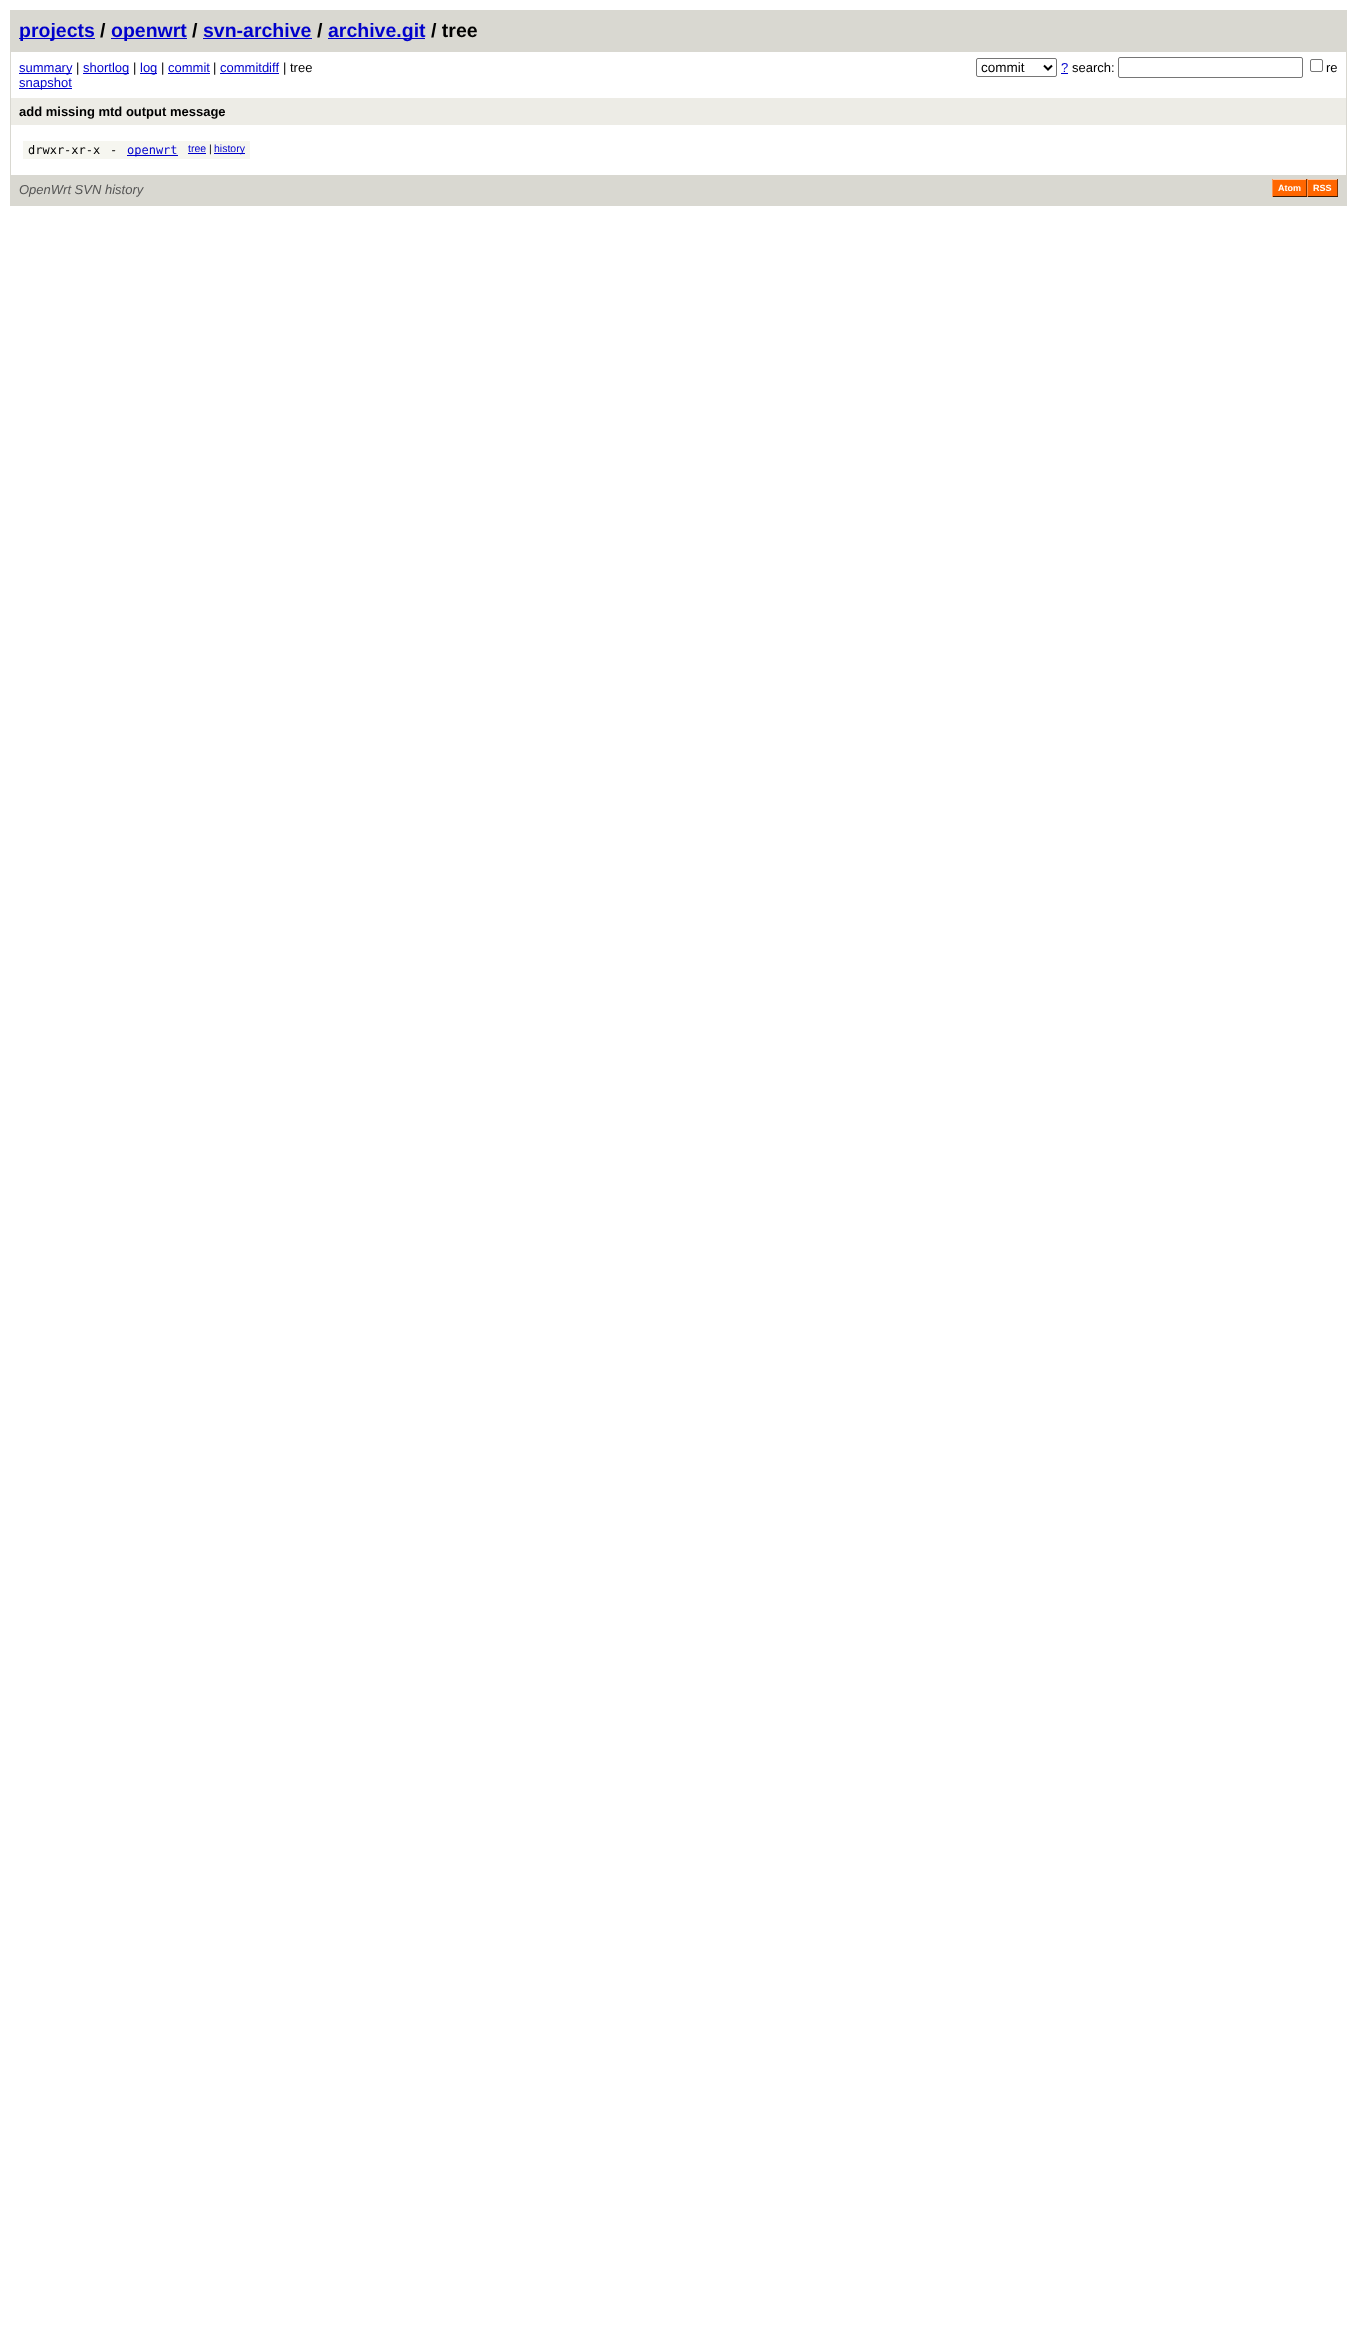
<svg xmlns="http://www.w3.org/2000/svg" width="1357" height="2344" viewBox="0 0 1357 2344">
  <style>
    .t1 { font: bold 19.5px Liberation Sans; fill: #00c; }
    .t2 { font: bold 19.5px Liberation Sans; fill: #000; }
    .t3 { font: 13px Liberation Sans; fill: #00c; }
    .t4 { font: 13px Liberation Sans; fill: #000; }
    .t5 { font: 13.5px Liberation Sans; fill: #000; }
    .t6 { font: bold 13px Liberation Sans; fill: #000; }
    .t7 { font: 12px DejaVu Sans Mono; fill: #000; }
    .t8 { font: 12px DejaVu Sans Mono; fill: #00c; }
    .t9 { font: 10.5px Liberation Sans; fill: #00c; }
    .t10 { font: 10.5px Liberation Sans; fill: #000; }
    .t11 { font: italic 13px Liberation Sans; fill: #555; }
    .t12 { font: bold 9px Liberation Sans; fill: #fff; }
  </style>
  <rect width="100%" height="100%" fill="#fff"/>
  <rect x="10.5" y="10.5" width="1336" height="195" fill="none" stroke="#d9d8d1"/>
  <rect x="11" y="11" width="1335" height="41" fill="#d9d8d1"/>
  <rect x="19" y="38" width="76" height="1" fill="#00c"/>
  <text x="19" y="37" class="t1">projects</text>
  <text x="100" y="37" class="t2">/</text>
  <rect x="111" y="38" width="76" height="1" fill="#00c"/>
  <text x="111" y="37" class="t1">openwrt</text>
  <text x="192" y="37" class="t2">/</text>
  <text x="203" y="37" class="t1">svn-archive</text>
  <rect x="203" y="38" width="109" height="1" fill="#00c"/>
  <text x="317" y="37" class="t2">/</text>
  <rect x="328" y="38" width="97" height="1" fill="#00c"/>
  <text x="328" y="37" class="t1">archive.git</text>
  <text x="431" y="37" class="t2">/ tree</text>
  <rect x="19" y="73" width="53" height="1" fill="#00c"/>
  <text x="19" y="72" class="t3">summary</text>
  <text x="76" y="72" class="t4">|</text>
  <rect x="83" y="73" width="46" height="1" fill="#00c"/>
  <text x="83" y="72" class="t3">shortlog</text>
  <text x="133" y="72" class="t4">|</text>
  <rect x="140" y="73" width="17" height="1" fill="#00c"/>
  <text x="140" y="72" class="t3">log</text>
  <text x="161" y="72" class="t4">|</text>
  <text x="168" y="72" class="t3">commit</text>
  <rect x="168" y="73" width="42" height="1" fill="#00c"/>
  <text x="213" y="72" class="t4">|</text>
  <text x="220" y="72" class="t3">commitdiff</text>
  <rect x="220" y="73" width="59" height="1" fill="#00c"/>
  <text x="283" y="72" class="t4">| tree</text>
  <rect x="19" y="88" width="53" height="1" fill="#00c"/>
  <text x="19" y="87" class="t3">snapshot</text>
  <rect x="976.5" y="58.5" width="80" height="18" rx="1.5" fill="none" stroke="#767676"/>
  <path d="M1044 65.5L1048 69.5L1052 65.5" fill="none" stroke="#000" stroke-width="2"/>
  <text x="981" y="72" class="t5">commit</text>
  <text x="1061" y="72" class="t3">?</text>
  <rect x="1061" y="73" width="7" height="1" fill="#00c"/>
  <text x="1072" y="72" class="t4">search:</text>
  <rect x="1118.5" y="57.5" width="184" height="20" rx="1.5" fill="none" stroke="#767676"/>
  <rect x="1310.5" y="59.5" width="12" height="12" rx="1.5" fill="none" stroke="#767676"/>
  <text x="1326" y="72" class="t4">re</text>
  <rect x="11" y="98" width="1335" height="27" fill="#edece6"/>
  <text x="19" y="116" class="t6">add missing mtd output message</text>
  <rect x="23" y="141" width="227" height="18" fill="#f6f6f0"/>
  <text x="28" y="154" class="t7">drwxr-xr-x</text>
  <text x="110" y="154" class="t7">-</text>
  <rect x="127" y="155" width="51" height="1" fill="#00c"/>
  <text x="127" y="154" class="t8">openwrt</text>
  <text x="188" y="152" class="t9">tree</text>
  <rect x="188" y="153" width="18" height="1" fill="#00c"/>
  <text x="209" y="152" class="t10">|</text>
  <rect x="214" y="153" width="31" height="1" fill="#00c"/>
  <text x="214" y="152" class="t9">history</text>
  <rect x="11" y="175" width="1335" height="30" fill="#d9d8d1"/>
  <text x="19" y="194" class="t11">OpenWrt SVN history</text>
  <rect x="1273" y="180" width="33" height="16" fill="#f60"/>
  <rect x="1272" y="179" width="66" height="1" fill="#fcc7a5"/>
  <rect x="1306" y="179" width="1" height="18" fill="#7d3302"/>
  <rect x="1272" y="196" width="35" height="1" fill="#3e1a01"/>
  <rect x="1272" y="179" width="1" height="18" fill="#ff954e"/>
  <text x="1278" y="191" class="t12">Atom</text>
  <rect x="1308" y="180" width="29" height="16" fill="#f60"/>
  <rect x="1337" y="179" width="1" height="18" fill="#7d3302"/>
  <rect x="1307" y="196" width="31" height="1" fill="#3e1a01"/>
  <rect x="1307" y="179" width="1" height="18" fill="#ff954e"/>
  <text x="1313" y="191" class="t12">RSS</text>
</svg>
